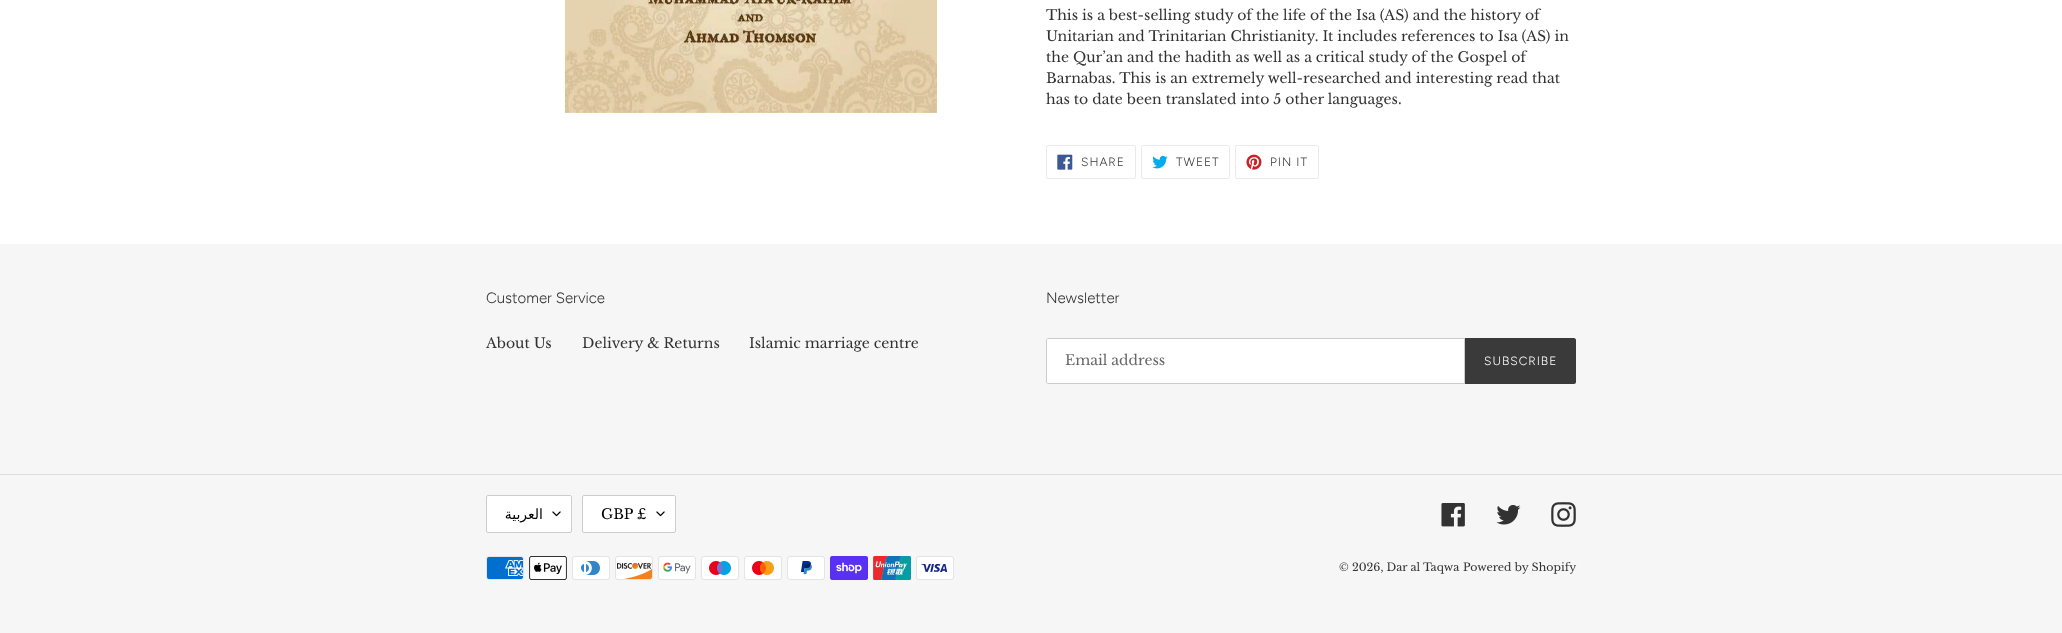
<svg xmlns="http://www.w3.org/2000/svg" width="2062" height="633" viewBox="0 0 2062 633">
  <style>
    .t1 { font: 14px Libre Baskerville; fill: #333232; }
    .t2 { font: 300 12px Figtree; letter-spacing: 1px; fill: #3a3a3a; }
    .t3 { font: 300 15px Figtree; fill: #333232; }
    .t4 { font: 14px Libre Baskerville; fill: #666; }
    .t5 { font: 300 12px Figtree; letter-spacing: 1px; fill: #fff; }
    .t6 { font: 14px DejaVu Sans; direction: rtl; fill: #000; }
    .t7 { font: 14px Libre Baskerville; fill: #000; }
    .t8 { font: 11px Libre Baskerville; fill: #333232; }
  </style>
  <rect width="100%" height="100%" fill="#fff"/>
  <image x="565" y="0" width="372" height="113" href="images/1.png"/>
  <text x="1046" y="20" class="t1">This is a best-selling study of the life of the Isa (AS) and the history of</text>
  <text x="1046" y="41" class="t1">Unitarian and Trinitarian Christianity. It includes references to Isa (AS) in</text>
  <text x="1046" y="62" class="t1">the Qur’an and the hadith as well as a critical study of the Gospel of</text>
  <text x="1046" y="83" class="t1">Barnabas. This is an extremely well-researched and interesting read that</text>
  <text x="1046" y="104" class="t1">has to date been translated into 5 other languages.</text>
  <rect x="1046.5" y="145.5" width="89" height="33" rx="1.5" fill="none" stroke="#ebebeb"/>
  <image x="1057" y="154" width="16" height="16" href="images/2.png"/>
  <text x="1081" y="166" class="t2">SHARE</text>
  <rect x="1141.5" y="145.5" width="88" height="33" rx="1.5" fill="none" stroke="#ebebeb"/>
  <image x="1152" y="155" width="16" height="14" href="images/3.png"/>
  <text x="1176" y="166" class="t2">TWEET</text>
  <rect x="1235.5" y="145.5" width="83" height="33" rx="1.5" fill="none" stroke="#ebebeb"/>
  <image x="1246" y="154" width="16" height="16" href="images/4.png"/>
  <text x="1270" y="166" class="t2">PIN IT</text>
  <rect x="0" y="244" width="2062" height="389" fill="#f6f6f6"/>
  <text x="486" y="303" class="t3">Customer Service</text>
  <text x="486" y="348" class="t1">About Us</text>
  <text x="582" y="348" class="t1">Delivery &amp; Returns</text>
  <text x="749" y="348" class="t1">Islamic marriage centre</text>
  <text x="1046" y="303" class="t3">Newsletter</text>
  <path d="M1048 338.5H1464.5V383.5H1048C1047 383.5 1046.5 383 1046.5 382V340C1046.5 339 1047 338.5 1048 338.5Z" fill="#fff" stroke="#ccc"/>
  <text x="1065" y="365" class="t4">Email address</text>
  <path d="M1465 338H1574C1575 338 1576 339 1576 340V382C1576 383 1575 384 1574 384H1465Z" fill="#3a3a3a"/>
  <text x="1484" y="365" class="t5">SUBSCRIBE</text>
  <rect x="0" y="474" width="2062" height="1" fill="#ddd"/>
  <rect x="486" y="495" width="86" height="38" rx="2" fill="#fff"/>
  <image x="552" y="511" width="9" height="6" href="images/5.png"/>
  <rect x="486.5" y="495.5" width="85" height="37" rx="1.5" fill="none" stroke="#ccc"/>
  <text x="543" y="519" class="t6">العربية</text>
  <rect x="582" y="495" width="94" height="38" rx="2" fill="#fff"/>
  <image x="656" y="511" width="9" height="6" href="images/5.png"/>
  <rect x="582.5" y="495.5" width="93" height="37" rx="1.5" fill="none" stroke="#ccc"/>
  <text x="601" y="519" class="t7">GBP £</text>
  <image x="1441" y="503" width="24" height="24" href="images/6.png"/>
  <image x="1496" y="505" width="25" height="20" href="images/7.png"/>
  <image x="1551" y="502" width="25" height="25" href="images/8.png"/>
  <image x="486" y="556" width="38" height="24" href="images/9.png"/>
  <image x="529" y="556" width="38" height="24" href="images/10.png"/>
  <image x="572" y="556" width="38" height="24" href="images/11.png"/>
  <image x="615" y="556" width="38" height="24" href="images/12.png"/>
  <image x="658" y="556" width="38" height="24" href="images/13.png"/>
  <image x="701" y="556" width="38" height="24" href="images/14.png"/>
  <image x="744" y="556" width="38" height="24" href="images/15.png"/>
  <image x="787" y="556" width="38" height="24" href="images/16.png"/>
  <image x="830" y="556" width="38" height="24" href="images/17.png"/>
  <image x="873" y="556" width="38" height="24" href="images/18.png"/>
  <image x="916" y="556" width="38" height="24" href="images/19.png"/>
  <text x="1339" y="571" class="t8">© 2026, Dar al Taqwa</text>
  <text x="1463" y="571" class="t8">Powered by Shopify</text>
</svg>
